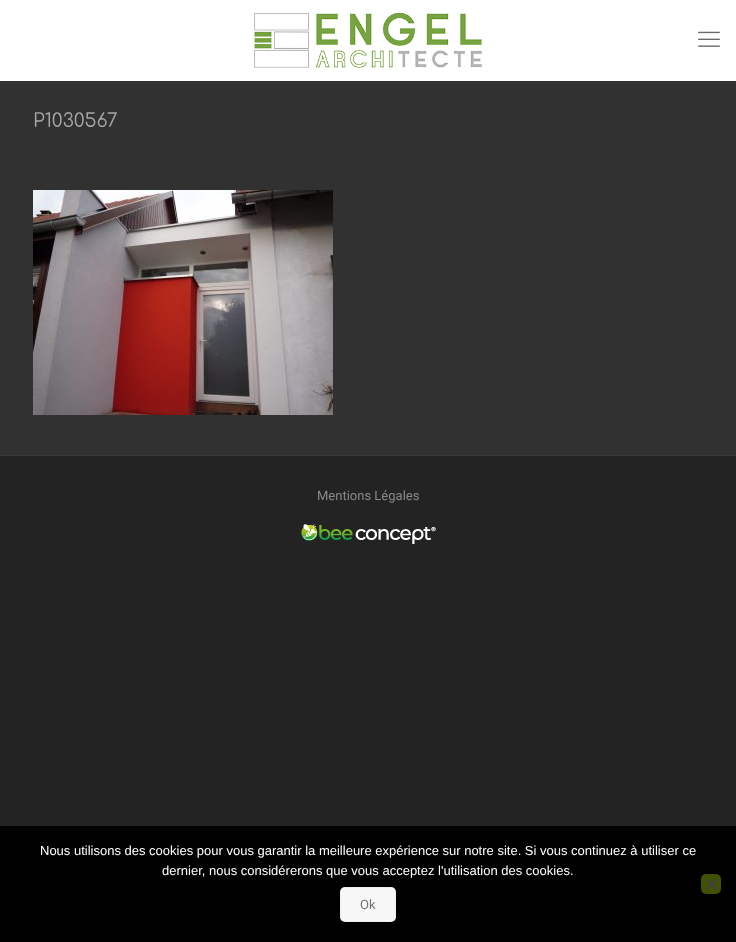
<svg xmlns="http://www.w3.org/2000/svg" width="736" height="942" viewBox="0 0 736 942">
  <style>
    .t1 { font: 19px Comfortaa; fill: #a7a7a7; }
    .t2 { font: 13px Roboto; fill: #898989; }
    .t3 { font: 13px Liberation Sans; fill: #fff; }
    .t4 { font: 13px Roboto; fill: #747474; }
  </style>
  <rect width="100%" height="100%" fill="#232323"/>
  <rect x="0" y="81" width="736" height="374" fill="#313131"/>
  <rect x="0" y="0" width="736" height="81" fill="#fff"/>
  <image x="254" y="12" width="228" height="56" href="images/1.png"/>
  <image x="698" y="31" width="22" height="16" href="images/2.png"/>
  <text x="33" y="127" class="t1">P1030567</text>
  <image x="33" y="190" width="300" height="225" href="images/3.png"/>
  <rect x="0" y="455" width="736" height="1" fill="#393939"/>
  <text x="317" y="500" class="t2">Mentions Légales</text>
  <image x="301" y="524" width="135" height="20" href="images/4.png"/>
  <rect x="0" y="826" width="736" height="116" fill="#000"/>
  <text x="40" y="855" class="t3">Nous utilisons des cookies pour vous garantir la meilleure expérience sur notre site. Si vous continuez à utiliser ce</text>
  <text x="162" y="875" class="t3">dernier, nous considérerons que vous acceptez l'utilisation des cookies.</text>
  <rect x="701" y="874" width="20" height="20" rx="5" fill="#3e5202"/>
  <path d="M716.5 878.5L718 880L707.5 890.5L706 889Z" fill="#404040"/>
  <path d="M706 880L707.5 878.5L718 889L716.5 890.5Z" fill="#404040"/>
  <rect x="340" y="887" width="56" height="35" rx="5" fill="#f7f7f7"/>
  <rect x="340.5" y="887.5" width="55" height="34" fill="none" stroke="#00000008"/>
  <text x="360" y="909" class="t4">Ok</text>
</svg>
